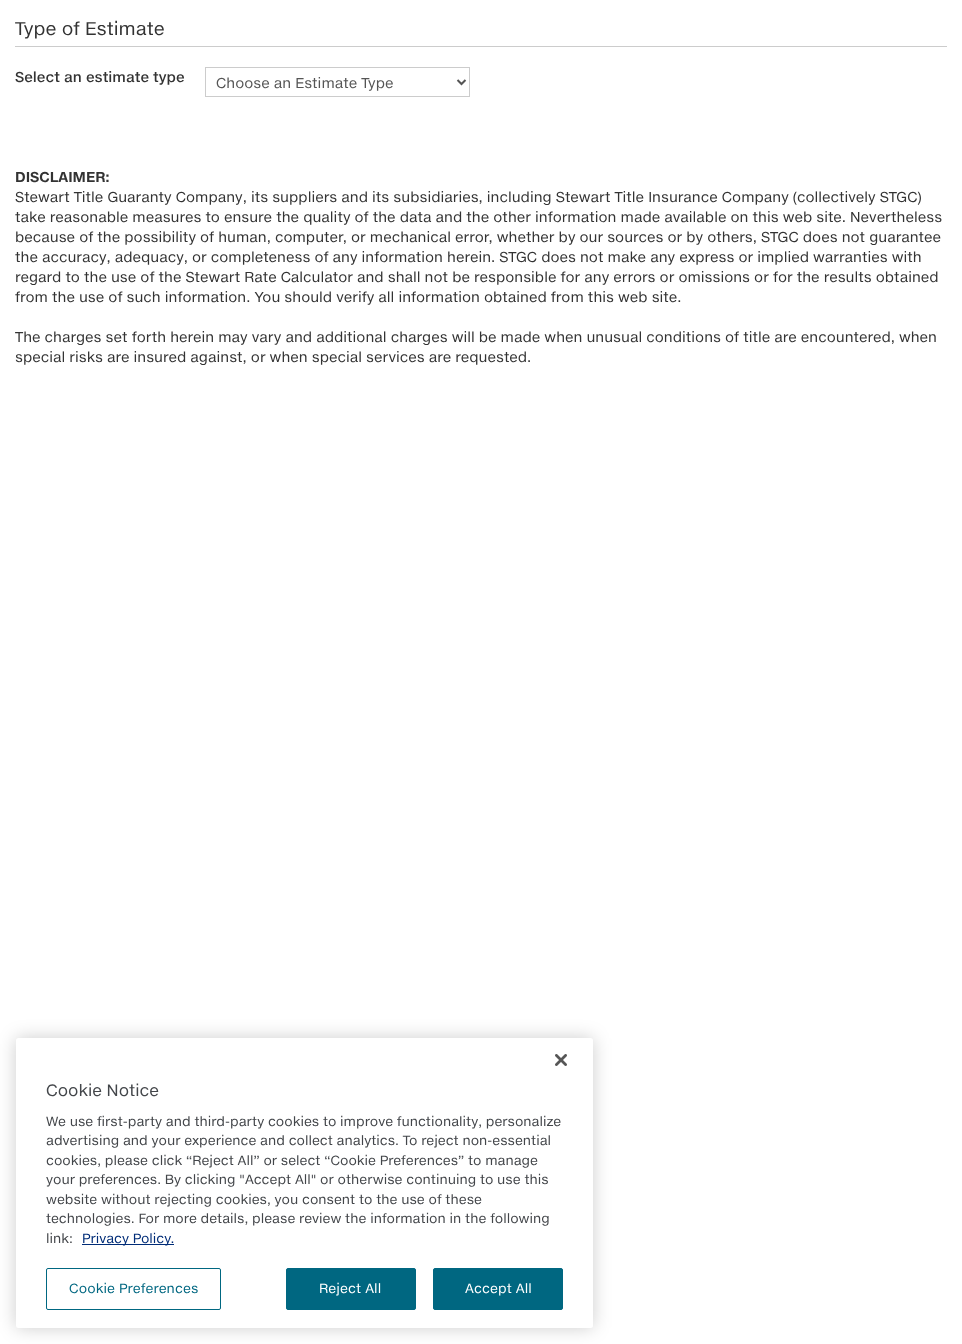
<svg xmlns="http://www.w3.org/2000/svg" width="962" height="1344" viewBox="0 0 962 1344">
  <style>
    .t1 { font: 18px 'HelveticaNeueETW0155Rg'; fill: #333; }
    .t2 { font: 500 14px 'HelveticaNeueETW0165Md'; fill: #333; }
    .t3 { font: 14px 'HelveticaNeueETW0155Rg'; fill: #555; }
    .t4 { font: bold 14px 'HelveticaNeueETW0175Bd'; fill: #333; }
    .t5 { font: 14px 'HelveticaNeueETW0155Rg'; fill: #333; }
    .t6 { font: 16px 'HelveticaNeueETW0155Rg'; fill: #43464a; }
    .t7 { font: 13px 'HelveticaNeueETW0155Rg'; fill: #43464a; }
    .t8 { font: 13px 'HelveticaNeueETW0155Rg'; fill: #002c77; }
    .t9 { font: 13px 'HelveticaNeueETW0155Rg'; letter-spacing: 0.1px; fill: #006781; }
    .t10 { font: 13px 'HelveticaNeueETW0155Rg'; letter-spacing: 0.1px; fill: #fff; }
  </style>
  <rect width="100%" height="100%" fill="#fff"/>
  <rect x="15" y="46" width="932" height="1" fill="#ccc"/>
  <text x="15" y="35" class="t1">Type of Estimate</text>
  <text x="15" y="82" class="t2">Select an estimate type</text>
  <rect x="205.5" y="67.5" width="264" height="29" fill="none" stroke="#ccc"/>
  <path d="M457.5 80L461.5 84L465.5 80" fill="none" stroke="#555" stroke-width="2"/>
  <text x="216" y="88" class="t3">Choose an Estimate Type</text>
  <text x="15" y="182" class="t4">DISCLAIMER:</text>
  <text x="15" y="202" class="t5">Stewart Title Guaranty Company, its suppliers and its subsidiaries, including Stewart Title Insurance Company (collectively STGC)</text>
  <text x="15" y="222" class="t5">take reasonable measures to ensure the quality of the data and the other information made available on this web site. Nevertheless</text>
  <text x="15" y="242" class="t5">because of the possibility of human, computer, or mechanical error, whether by our sources or by others, STGC does not guarantee</text>
  <text x="15" y="262" class="t5">the accuracy, adequacy, or completeness of any information herein. STGC does not make any express or implied warranties with</text>
  <text x="15" y="282" class="t5">regard to the use of the Stewart Rate Calculator and shall not be responsible for any errors or omissions or for the results obtained</text>
  <text x="15" y="302" class="t5">from the use of such information. You should verify all information obtained from this web site.</text>
  <text x="15" y="342" class="t5">The charges set forth herein may vary and additional charges will be made when unusual conditions of title are encountered, when</text>
  <text x="15" y="362" class="t5">special risks are insured against, or when special services are requested.</text>
  <rect x="16" y="1038" width="577" height="290" rx="2.5" fill="#00000033" filter="blur(9px)"/>
  <rect x="16" y="1038" width="577" height="290" rx="2.5" fill="#fff"/>
  <image x="555" y="1054" width="12" height="12" href="images/1.png"/>
  <text x="46" y="1096" class="t6">Cookie Notice</text>
  <text x="46" y="1126" class="t7">We use first-party and third-party cookies to improve functionality, personalize</text>
  <text x="46" y="1145" class="t7">advertising and your experience and collect analytics. To reject non-essential</text>
  <text x="46" y="1165" class="t7">cookies, please click “Reject All” or select “Cookie Preferences” to manage</text>
  <text x="46" y="1184" class="t7">your preferences. By clicking "Accept All" or otherwise continuing to use this</text>
  <text x="46" y="1204" class="t7">website without rejecting cookies, you consent to the use of these</text>
  <text x="46" y="1223" class="t7">technologies. For more details, please review the information in the following</text>
  <text x="46" y="1243" class="t7">link:</text>
  <rect x="82" y="1244" width="92" height="1" fill="#002c77"/>
  <text x="82" y="1243" class="t8">Privacy Policy.</text>
  <rect x="46.5" y="1268.5" width="174" height="41" rx="1.5" fill="none" stroke="#006781"/>
  <text x="69" y="1293" class="t9">Cookie Preferences</text>
  <rect x="286.5" y="1268.5" width="129" height="41" rx="1.5" fill="#006781" stroke="#006781"/>
  <text x="319" y="1293" class="t10">Reject All</text>
  <rect x="433.5" y="1268.5" width="129" height="41" rx="1.5" fill="#006781" stroke="#006781"/>
  <text x="465" y="1293" class="t10">Accept All</text>
</svg>
